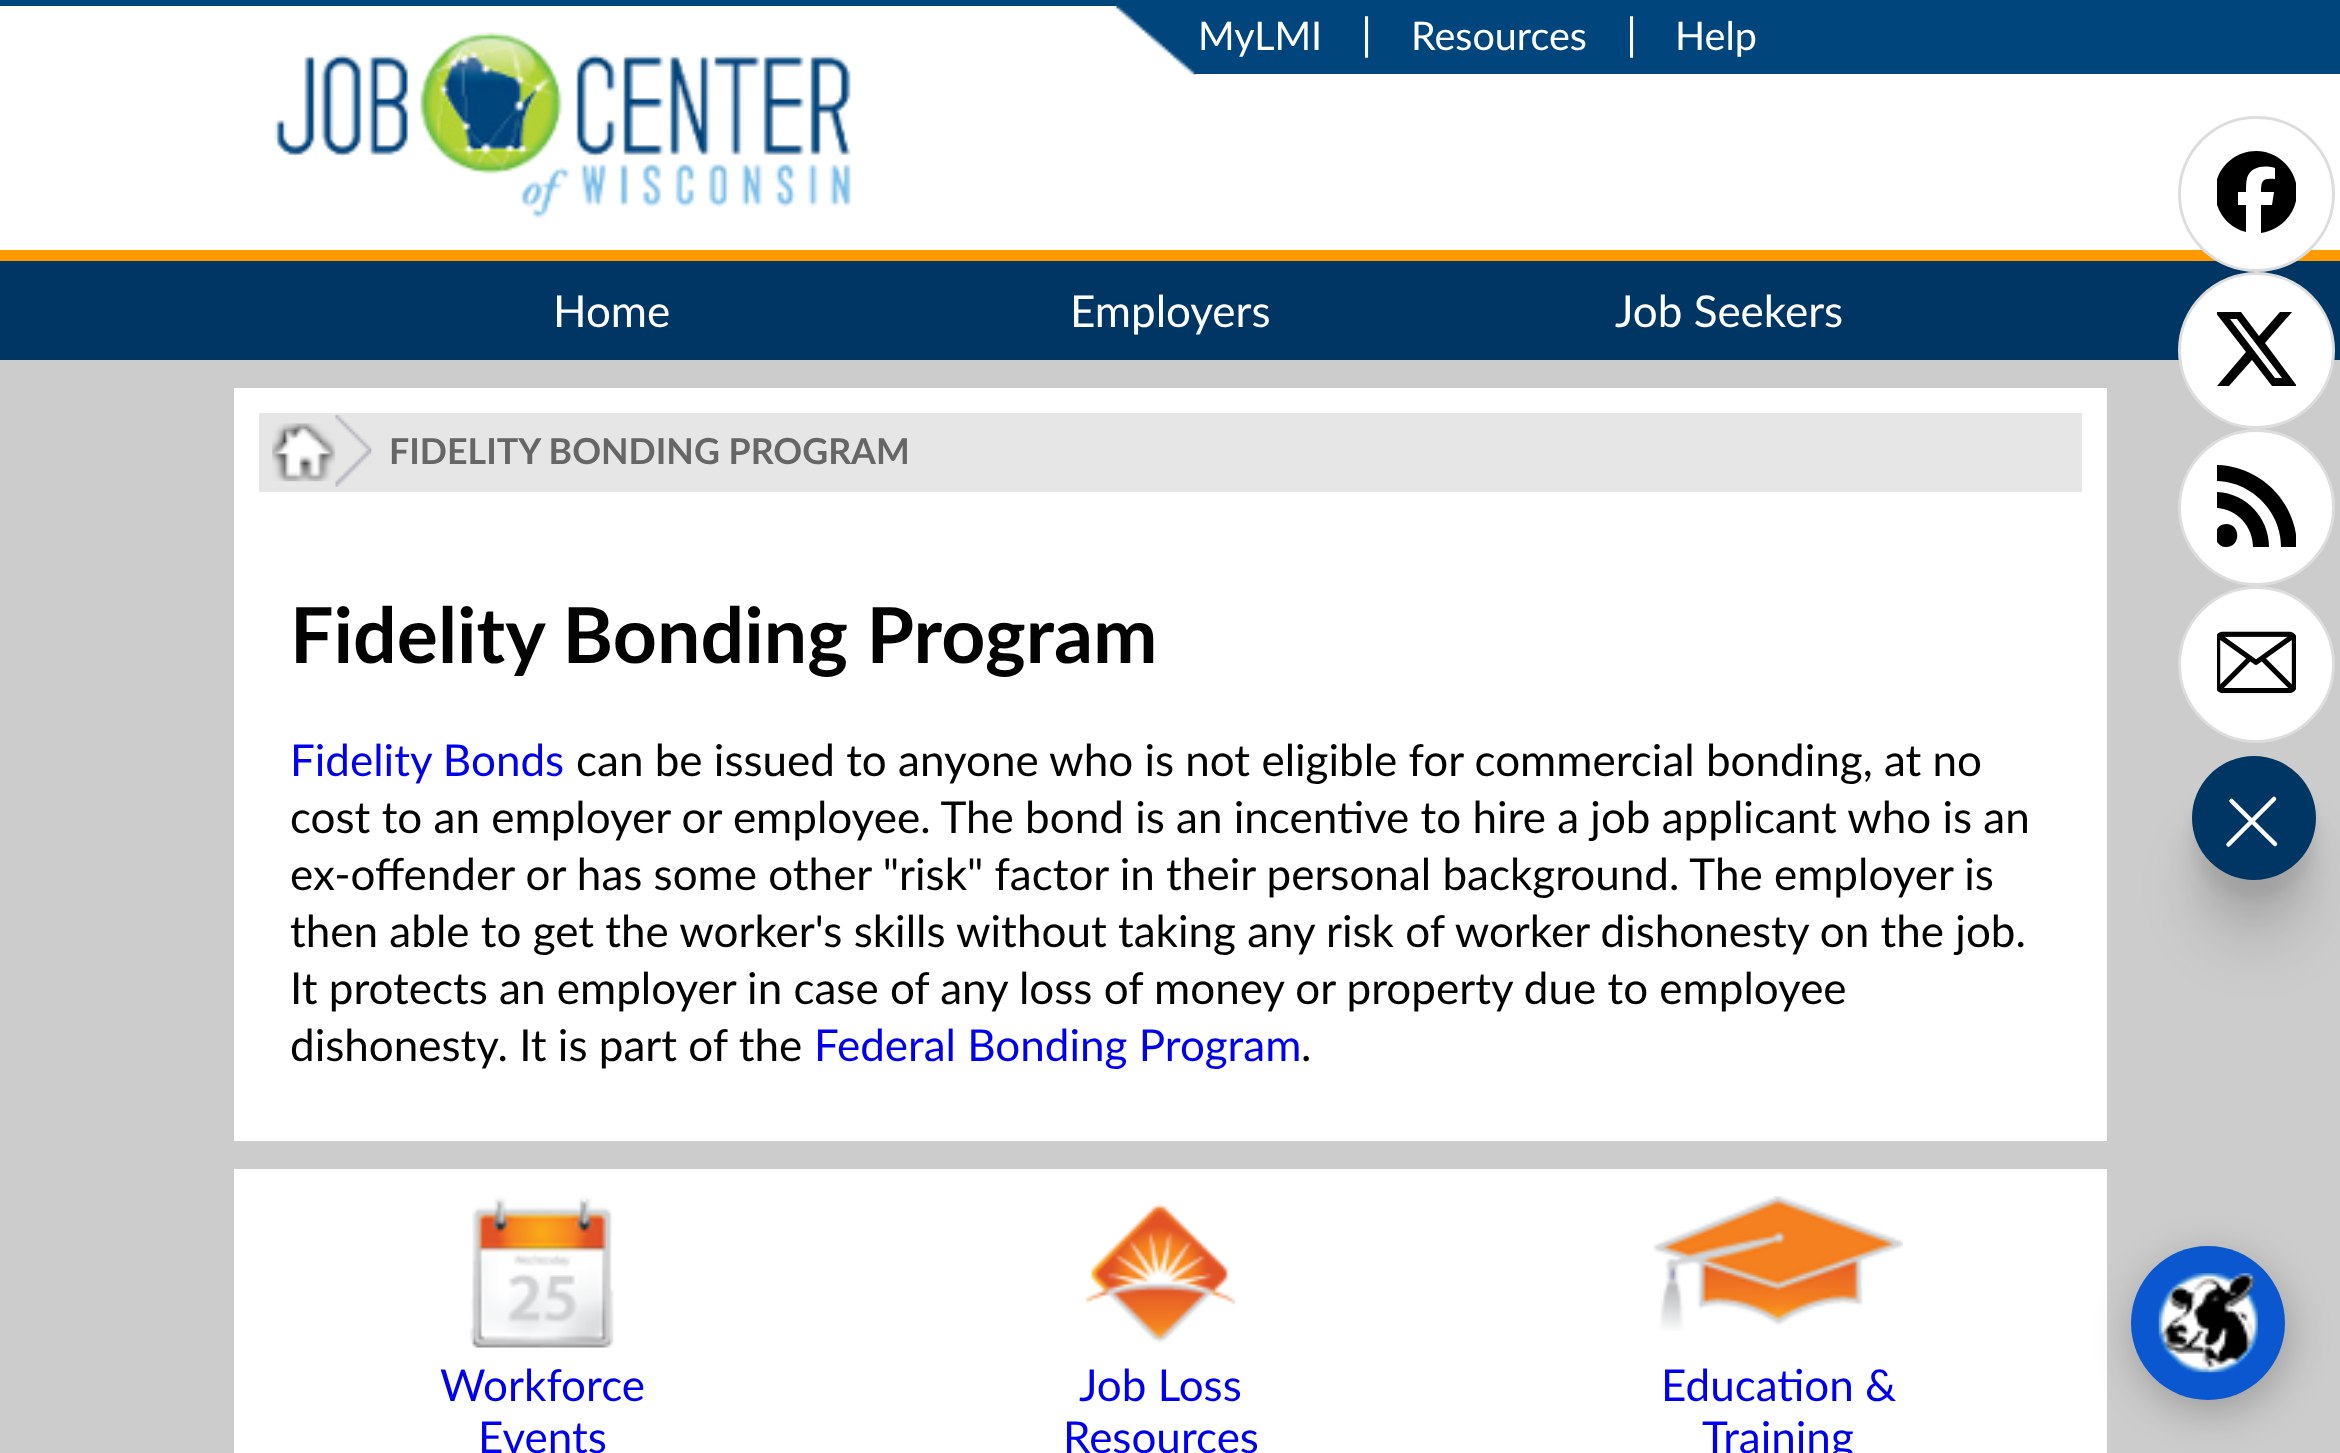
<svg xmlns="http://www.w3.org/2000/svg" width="2340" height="1453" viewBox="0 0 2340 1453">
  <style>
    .t1 { font: 39.5px Lato; fill: #fff; }
    .t2 { font: 44px Lato; fill: #fff; }
    .t3 { font: bold 35.75px Lato; fill: #666; }
    .t4 { font: bold 77px Lato; fill: #030303; }
    .t5 { font: 44px Lato; fill: #00e; }
    .t6 { font: 44px Lato; fill: #030303; }
  </style>
  <defs>
    <clipPath id="clip1"><rect x="2217" y="151" width="79" height="83"/></clipPath>
    <clipPath id="clip2"><rect x="2217" y="308" width="79" height="83"/></clipPath>
    <clipPath id="clip3"><rect x="2217" y="465" width="79" height="82"/></clipPath>
  </defs>
  <rect width="100%" height="100%" fill="#ccc"/>
  <rect x="0" y="6" width="2340" height="244" fill="#fff"/>
  <rect x="0" y="0" width="2340" height="6" fill="#00457c"/>
  <image x="274" y="32" width="577" height="186" href="images/1.png"/>
  <rect x="1196" y="6" width="1144" height="68" fill="#00457c"/>
  <image x="1116" y="5" width="81" height="70" href="images/2.png"/>
  <text x="1198" y="50" class="t1">MyLMI</text>
  <text x="1361" y="50" class="t2">|</text>
  <text x="1411" y="50" class="t1">Resources</text>
  <text x="1626" y="50" class="t2">|</text>
  <text x="1675" y="50" class="t1">Help</text>
  <rect x="0" y="261" width="2340" height="99" fill="#003663"/>
  <rect x="0" y="250" width="2340" height="11" fill="#f90"/>
  <text x="553" y="327" class="t2">Home</text>
  <text x="1070" y="327" class="t2">Employers</text>
  <text x="1615" y="327" class="t2">Job Seekers</text>
  <rect x="2179.5" y="117.5" width="154" height="153" rx="76.5" fill="#fff" stroke="#ddd" stroke-width="3"/>
  <g clip-path="url(#clip1)">
    <path d="M2246 232V205H2238V192H2246C2246 187 2246 183 2247 178C2251 166 2265 165 2275 168V179C2263 178 2261 180 2261 192H2274L2272 205H2261V233C2281 230 2297 213 2297 192C2297 170 2279 151 2256 151C2233 151 2215 170 2215 192C2215 211 2228 228 2246 232Z" fill="#000"/>
  </g>
  <circle cx="2256.5" cy="350.5" r="77" fill="#fff" stroke="#ddd" stroke-width="3"/>
  <g clip-path="url(#clip2)">
    <path d="M2280 312H2292L2265 343L2297 386H2272L2252 360L2229 386H2217L2246 352L2215 312H2241L2259 336ZM2275 378H2282L2237 319H2230Z" fill="#000"/>
  </g>
  <circle cx="2256.5" cy="507.5" r="77" fill="#fff" stroke="#ddd" stroke-width="3"/>
  <g clip-path="url(#clip3)">
    <path d="M2281 547C2281 511 2251 481 2215 481V465C2260 465 2297 502 2297 547ZM2226 524C2241 524 2241 547 2226 547C2212 547 2212 524 2226 524ZM2269 547H2253C2253 526 2236 508 2215 508V492C2245 492 2269 517 2269 547Z" fill="#000"/>
  </g>
  <rect x="2192" y="825" width="124" height="124" rx="62" fill="#0000001a" filter="blur(27.5px)"/>
  <circle cx="2256.5" cy="664.5" r="77" fill="#fff" stroke="#ddd" stroke-width="3"/>
  <image x="2217" y="631" width="79" height="63" href="images/3.png"/>
  <rect x="2192" y="792" width="124" height="124" rx="62" fill="#0000000f" filter="blur(13px)"/>
  <rect x="2192" y="773" width="124" height="124" rx="62" fill="#0000000f" filter="blur(6px)"/>
  <circle cx="2254" cy="818" r="62" fill="#003663"/>
  <path d="M2228.5 844.5L2274 799M2231.5 801L2275 844" fill="none" stroke="#fff" stroke-width="4.5" stroke-linecap="round"/>
  <rect x="234" y="388" width="1873" height="753" fill="#fff"/>
  <rect x="259" y="413" width="1823" height="79" fill="#e6e6e6"/>
  <image x="272" y="423" width="64" height="59" href="images/4.png"/>
  <image x="335" y="415" width="37" height="72" href="images/5.png"/>
  <text x="389" y="464" class="t3">FIDELITY BONDING PROGRAM</text>
  <text x="290" y="663" class="t4">Fidelity Bonding Program</text>
  <text x="290" y="776" class="t5">Fidelity Bonds</text>
  <text x="576" y="776" class="t6">can be issued to anyone who is not eligible for commercial bonding, at no</text>
  <text x="290" y="833" class="t6">cost to an employer or employee. The bond is an incentive to hire a job applicant who is an</text>
  <text x="290" y="890" class="t6">ex-offender or has some other "risk" factor in their personal background. The employer is</text>
  <text x="290" y="947" class="t6">then able to get the worker's skills</text>
  <text x="956" y="947" class="t6">without taking any risk of worker dishonesty on the job.</text>
  <text x="290" y="1004" class="t6">It protects an employer in case of any loss of money or property due to employee</text>
  <text x="290" y="1061" class="t6">dishonesty. It is part of the</text>
  <text x="814" y="1061" class="t5">Federal Bonding Program</text>
  <text x="1301" y="1061" class="t6">.</text>
  <rect x="234" y="1169" width="1873" height="284" fill="#fff"/>
  <image x="470" y="1196" width="144" height="152" href="images/6.png"/>
  <text x="440" y="1401" class="t5">Workforce</text>
  <text x="478" y="1453" class="t5">Events</text>
  <image x="1086" y="1204" width="149" height="139" href="images/7.png"/>
  <text x="1079" y="1401" class="t5">Job Loss</text>
  <text x="1063" y="1453" class="t5">Resources</text>
  <image x="1653" y="1196" width="250" height="135" href="images/8.png"/>
  <text x="1661" y="1401" class="t5">Education &amp;</text>
  <text x="1702" y="1453" class="t5">Training</text>
  <rect x="2134" y="1257" width="154" height="154" rx="77" fill="#0000003d" filter="blur(20.5px)"/>
  <circle cx="2208" cy="1323" r="77" fill="#0b57d0"/>
  <image x="2158" y="1273" width="100" height="100" href="images/9.png"/>
</svg>
